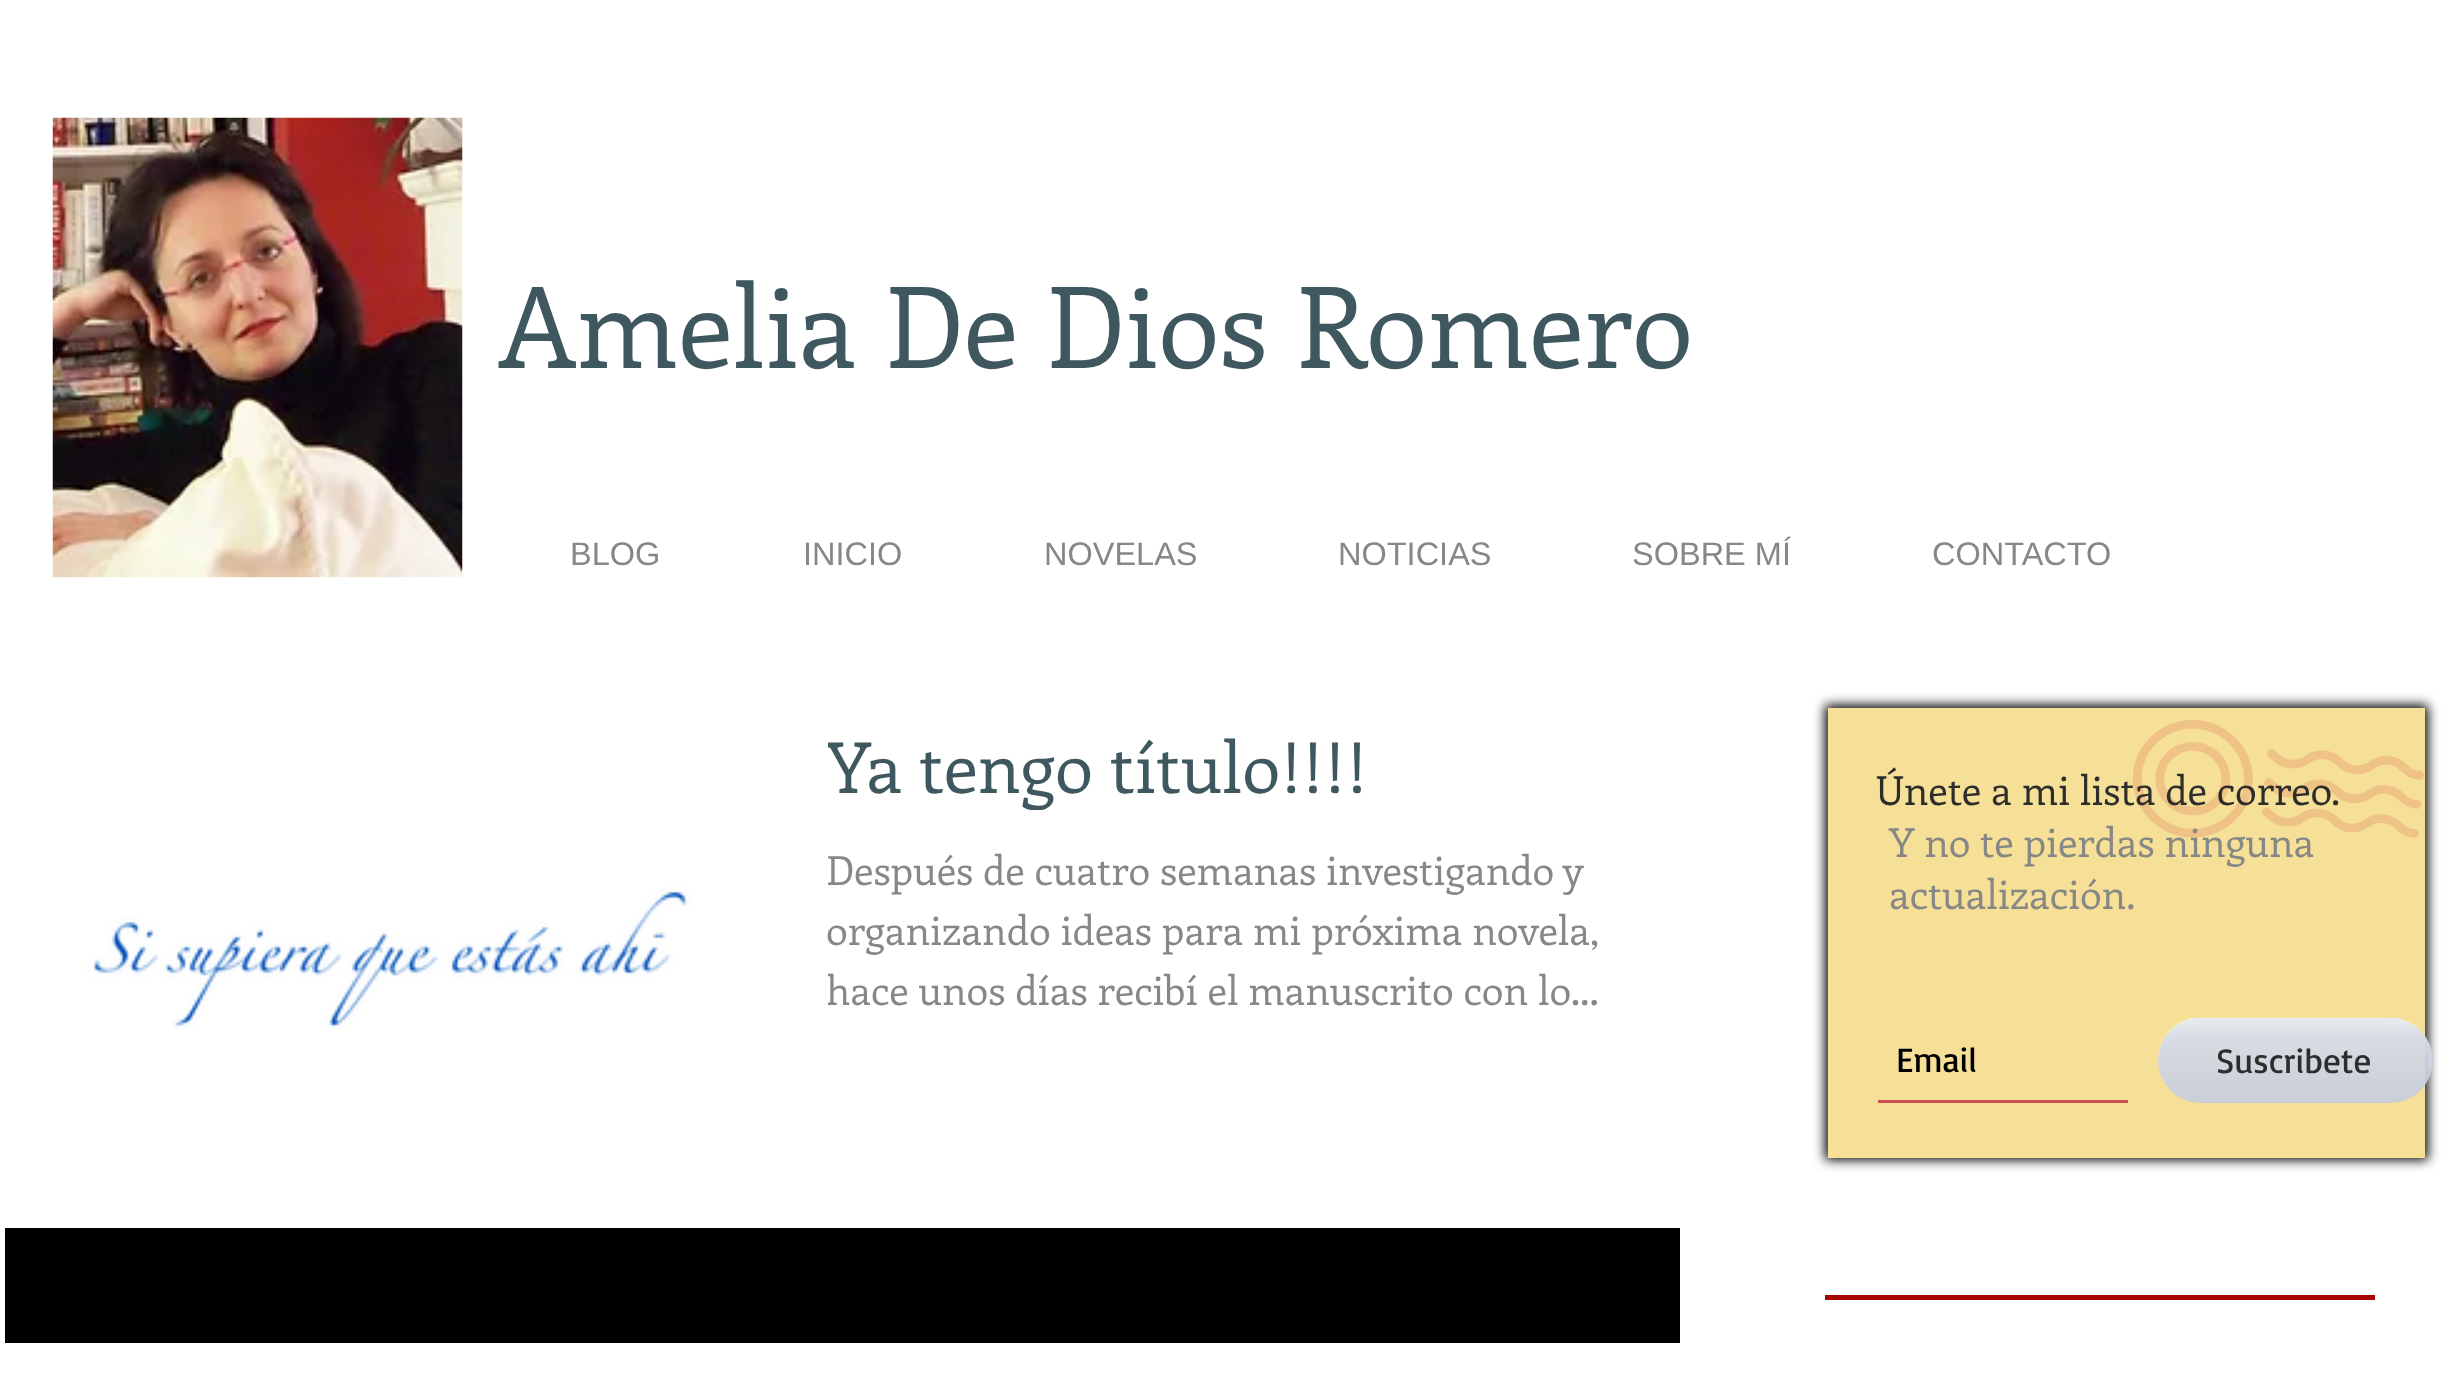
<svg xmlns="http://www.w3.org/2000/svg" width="2452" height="1373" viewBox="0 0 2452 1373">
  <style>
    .t1 { font: 112.5px Enriqueta; fill: #3f575e; }
    .t2 { font: 32.5px Liberation Sans; fill: #878785; }
    .t3 { font: 70px Enriqueta; fill: #3f575e; }
    .t4 { font: 40px Enriqueta; fill: #878785; }
    .t5 { font: 40px Enriqueta; fill: #2d2d2c; }
    .t6 { font: 35px Basic; fill: #000; }
    .t7 { font: 35px Basic; fill: #2d2d2c; }
  </style>
  <defs>
    <clipPath id="clip1"><rect x="828" y="718" width="792" height="92"/></clipPath>
    <clipPath id="clip2"><rect x="828" y="840" width="792" height="180"/></clipPath>
  </defs>
  <rect width="100%" height="100%" fill="#fff"/>
  <image x="52" y="117" width="411" height="461" href="images/1.png"/>
  <text x="499" y="368" class="t1">Amelia De Dios Romero</text>
  <text x="570" y="565" class="t2">BLOG</text>
  <text x="803" y="565" class="t2">INICIO</text>
  <text x="1044" y="565" class="t2">NOVELAS</text>
  <text x="1338" y="565" class="t2">NOTICIAS</text>
  <text x="1632" y="565" class="t2">SOBRE MÍ</text>
  <text x="1932" y="565" class="t2">CONTACTO</text>
  <rect x="5" y="1228" width="1675" height="115" fill="#000"/>
  <image x="5" y="655" width="763" height="573" href="images/2.png"/>
  <g clip-path="url(#clip1)">
    <text x="826" y="793" class="t3">Ya tengo título!!!!</text>
  </g>
  <text x="826" y="885" class="t4">Después de cuatro semanas investigando y</text>
  <text x="826" y="945" class="t4">organizando ideas para mi próxima novela,</text>
  <g clip-path="url(#clip2)">
    <text x="826" y="1005" class="t4">hace unos días recibí el manuscrito con lo…</text>
  </g>
  <rect x="1825" y="705" width="603" height="455" fill="#000" filter="blur(6px)"/>
  <rect x="1828" y="708" width="597" height="450" fill="#f6e098"/>
  <image x="2132" y="720" width="292" height="118" href="images/3.png"/>
  <text x="1876" y="805" class="t5">Únete a mi lista de correo.</text>
  <text x="1889" y="857" class="t4">Y no te pierdas ninguna</text>
  <text x="1889" y="909" class="t4">actualización.</text>
  <rect x="1878" y="1100" width="250" height="3" fill="#c85050"/>
  <text x="1896" y="1072" class="t6">Email</text>
  <rect x="2158" y="1018" width="275" height="85" rx="42.5" fill="#c0c9dce6"/>
  <image x="2157" y="1017" width="275" height="85" href="images/4.png"/>
  <text x="2216" y="1073" class="t7">Suscribete</text>
  <rect x="1825" y="1295" width="550" height="5" fill="#a40606"/>
</svg>
